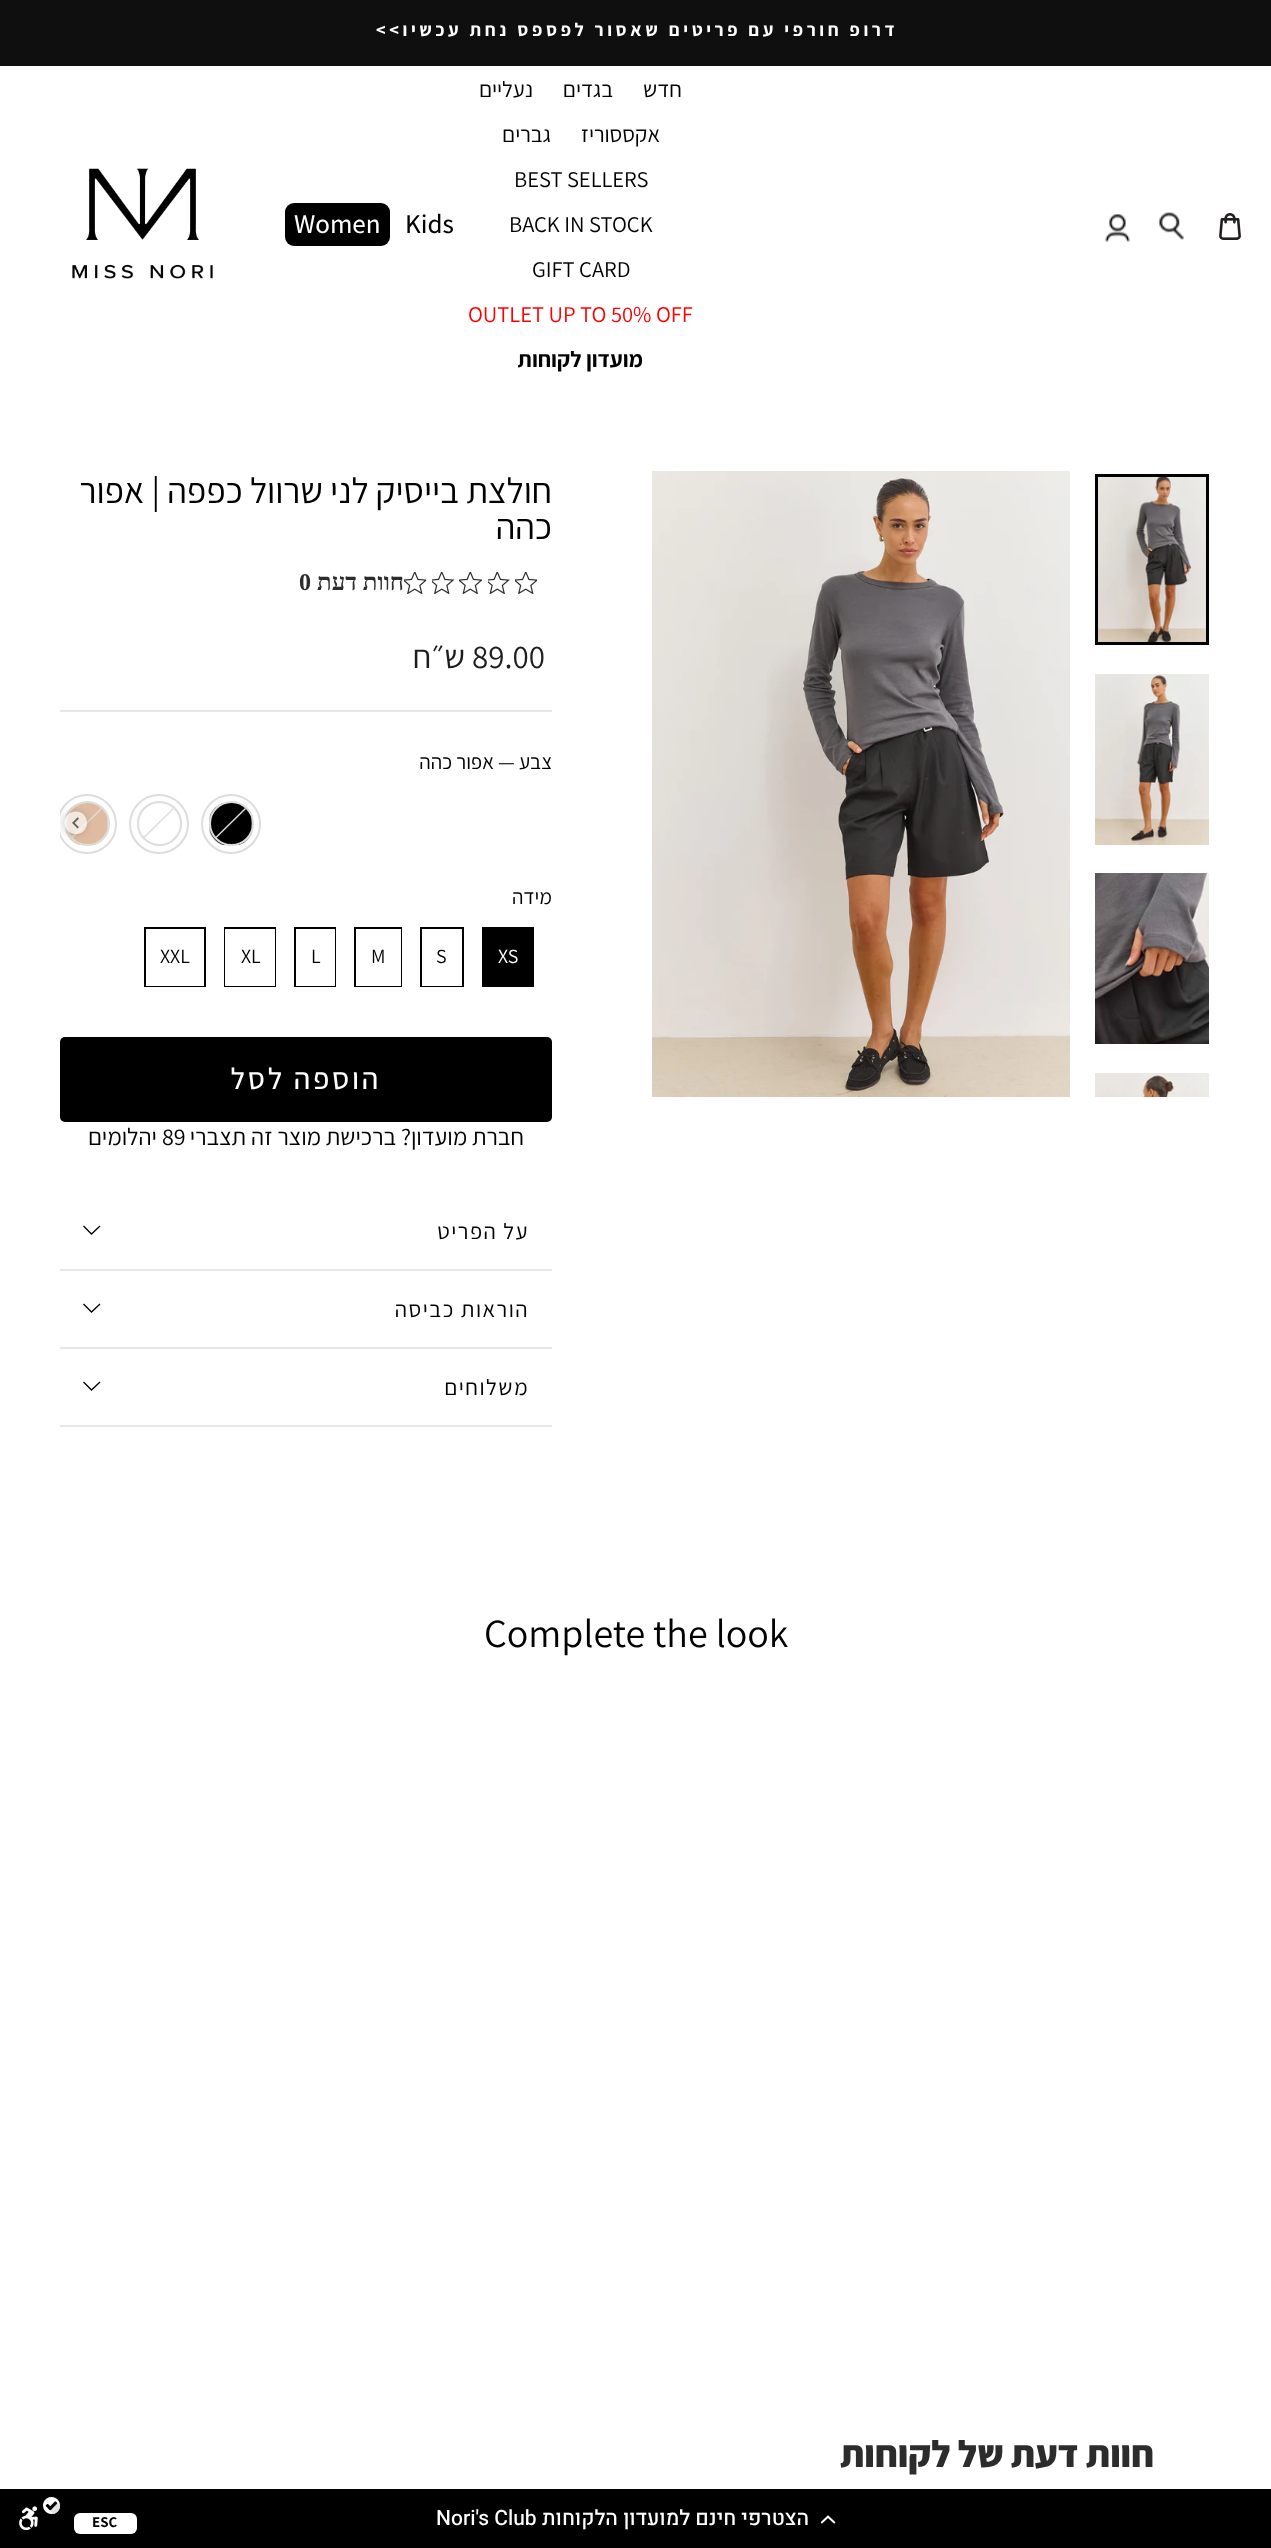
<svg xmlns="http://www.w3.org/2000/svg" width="1271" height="2548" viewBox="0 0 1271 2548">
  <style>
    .t1 { font: 200 18.35px 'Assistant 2'; letter-spacing: 3.65px; direction: rtl; fill: #fff; }
    .t2 { font: 200 22.5px Assistant; direction: rtl; fill: #000; }
    .t3 { font: 200 22.5px Assistant; fill: #000; }
    .t4 { font: 200 22.5px Assistant; fill: #f00; }
    .t5 { font: 200 22.5px 'Assistant 2'; direction: rtl; fill: #000; }
    .t6 { font: 500 27px Assistant; fill: #000; }
    .t7 { font: 500 27px Assistant; fill: #fff; }
    .t8 { font: 200 36px Assistant; direction: rtl; fill: #000; }
    .t9 { font: bold 24px Liberation Serif; direction: rtl; fill: #2c2c2c; }
    .t10 { font: bold 24px Liberation Serif; fill: #2c2c2c; }
    .t11 { font: 200 33px Assistant; fill: #1c1d1d; }
    .t12 { font: 200 33px Assistant; direction: rtl; fill: #1c1d1d; }
    .t13 { font: 200 21px Assistant; direction: rtl; fill: #000; }
    .t14 { font: 200 21px Assistant; fill: #000; }
    .t15 { font: 200 20px Assistant; fill: #fff; }
    .t16 { font: 200 20px Assistant; fill: #000; }
    .t17 { font: 500 30px Assistant; letter-spacing: 2.75px; direction: rtl; fill: #fff; }
    .t18 { font: 200 24px Assistant; direction: rtl; fill: #000; }
    .t19 { font: 200 24px Assistant; fill: #000; }
    .t20 { font: 200 22.5px Assistant; letter-spacing: 1.5px; direction: rtl; fill: #000; }
    .t21 { font: 200 40px Assistant; fill: #000; }
    .t22 { font: 800 37.5px Assistant; direction: rtl; fill: #2c2c2c; }
    .t23 { font: 500 21px Heebo; direction: rtl; fill: #fff; }
    .t24 { font: 500 21px Heebo; fill: #fff; }
    .t25 { font: 200 15px 'Assistant 2'; fill: #000; }
  </style>
  <defs>
    <clipPath id="clip1"><rect x="60" y="779" width="492" height="90"/></clipPath>
    <clipPath id="clip2"><rect x="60" y="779" width="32" height="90"/></clipPath>
    <clipPath id="clip3"><path d="M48 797H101V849H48ZM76 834C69.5 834 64.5 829 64.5 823C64.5 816.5 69.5 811.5 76 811.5C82 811.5 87 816.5 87 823C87 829 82 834 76 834Z" clip-rule="evenodd"/></clipPath>
  </defs>
  <rect width="100%" height="100%" fill="#fff"/>
  <rect x="0" y="0" width="1271" height="66" fill="#0f0f0f"/>
  <text x="898" y="36" class="t1">דרופ חורפי עם פריטים שאסור לפספס נחת עכשיו&gt;&gt;</text>
  <image x="1219" y="213" width="22" height="27" href="images/1.png"/>
  <image x="1159" y="212" width="25" height="28" href="images/2.png"/>
  <image x="1105" y="214" width="25" height="28" href="images/3.png"/>
  <text x="682" y="97" class="t2">חדש</text>
  <text x="613" y="97" class="t2">בגדים</text>
  <text x="533" y="97" class="t2">נעליים</text>
  <text x="660" y="142" class="t2">אקססוריז</text>
  <text x="551" y="142" class="t2">גברים</text>
  <text x="514" y="187" class="t3">BEST SELLERS</text>
  <text x="509" y="232" class="t3">BACK IN STOCK</text>
  <text x="532" y="277" class="t3">GIFT CARD</text>
  <text x="468" y="322" class="t4">OUTLET UP TO 50% OFF</text>
  <text x="643" y="367" class="t5">מועדון לקוחות</text>
  <text x="405" y="233" class="t6">Kids</text>
  <rect x="285" y="203" width="105" height="43" rx="9" fill="#000"/>
  <text x="294" y="233" class="t7">Women</text>
  <image x="72" y="168" width="141" height="111" href="images/4.png"/>
  <image x="1098" y="477" width="108" height="165" href="images/5.png"/>
  <rect x="1096.5" y="475.5" width="111" height="168" fill="none" stroke="#000" stroke-width="3"/>
  <image x="1095" y="674" width="114" height="171" href="images/6.png"/>
  <image x="1095" y="873" width="114" height="171" href="images/7.png"/>
  <image x="1095" y="1073" width="114" height="24" href="images/8.png"/>
  <image x="652" y="471" width="418" height="626" href="images/9.png"/>
  <text x="552" y="503" class="t8">חולצת בייסיק לני שרוול כפפה | אפור</text>
  <text x="552" y="539" class="t8">כהה</text>
  <image x="515" y="572" width="22" height="22" href="images/10.png"/>
  <image x="488" y="572" width="22" height="22" href="images/11.png"/>
  <image x="459" y="572" width="23" height="22" href="images/12.png"/>
  <image x="432" y="572" width="23" height="22" href="images/13.png"/>
  <image x="404" y="572" width="22" height="22" href="images/10.png"/>
  <text x="404" y="590" class="t9">חוות דעת</text>
  <text x="299" y="590" class="t10">0</text>
  <text x="472" y="668" class="t11">89.00</text>
  <text x="465" y="668" class="t12">ש״ח</text>
  <rect x="60" y="710" width="492" height="2" fill="#e7e7e7"/>
  <text x="552" y="769" class="t13">צבע</text>
  <text x="498" y="769" class="t14">—</text>
  <text x="494" y="769" class="t13">אפור כהה</text>
  <circle cx="231" cy="824" r="29" fill="none" stroke="#ddd" stroke-width="2"/>
  <image x="209" y="803" width="44" height="42" href="images/14.png"/>
  <circle cx="231.5" cy="823.5" r="21.5" fill="none" stroke="#ddd" stroke-width="2"/>
  <path d="M245 808L246 809L216.5 838L215.5 837Z" fill="#ddd"/>
  <circle cx="159" cy="824" r="29" fill="none" stroke="#ddd" stroke-width="2"/>
  <circle cx="159.5" cy="823.5" r="21.5" fill="none" stroke="#ddd" stroke-width="2"/>
  <path d="M173 808L174 809L144.5 838L143.5 837Z" fill="#ddd"/>
  <g clip-path="url(#clip1)">
    <circle cx="87" cy="824" r="29" fill="none" stroke="#ddd" stroke-width="2"/>
  </g>
  <image x="65" y="803" width="44" height="42" href="images/15.png"/>
  <circle cx="87.5" cy="823.5" r="21.5" fill="none" stroke="#ddd" stroke-width="2"/>
  <path d="M101 808L102 809L72.5 838L71.5 837Z" fill="#ddd"/>
  <g clip-path="url(#clip2)">
    <g clip-path="url(#clip3)">
      <rect x="63" y="812" width="23" height="22" rx="11" fill="#00000033" filter="blur(4.5px)"/>
    </g>
  </g>
  <path d="M76 834C61 834 61 811.5 76 811.5C90.5 811.5 90.5 834 76 834Z" fill="#ffffffa6"/>
  <image x="72" y="817" width="7" height="12" href="images/16.png"/>
  <text x="552" y="904" class="t13">מידה</text>
  <rect x="483" y="928" width="50" height="58" fill="none" stroke="#000" stroke-width="2"/>
  <rect x="484" y="929" width="48" height="56" fill="#000"/>
  <text x="498" y="963" class="t15">XS</text>
  <rect x="421" y="928" width="42" height="58" fill="none" stroke="#000" stroke-width="2"/>
  <rect x="422" y="985" width="40" height="1" fill="#fff"/>
  <text x="436" y="963" class="t16">S</text>
  <rect x="355" y="928" width="46" height="58" fill="none" stroke="#000" stroke-width="2"/>
  <rect x="356" y="929" width="45" height="57" fill="#fff"/>
  <text x="371" y="963" class="t16">M</text>
  <rect x="295" y="928" width="40" height="58" fill="none" stroke="#000" stroke-width="2"/>
  <rect x="296" y="929" width="39" height="57" fill="#fff"/>
  <text x="311" y="963" class="t16">L</text>
  <rect x="225" y="928" width="50" height="58" fill="none" stroke="#000" stroke-width="2"/>
  <rect x="225" y="929" width="50" height="57" fill="#fff"/>
  <text x="241" y="963" class="t16">XL</text>
  <rect x="145" y="928" width="60" height="58" fill="none" stroke="#000" stroke-width="2"/>
  <rect x="146" y="985" width="58" height="1" fill="#fff"/>
  <text x="160" y="963" class="t16">XXL</text>
  <rect x="60" y="1037" width="492" height="85" rx="5" fill="#000"/>
  <text x="381" y="1089" class="t17">הוספה לסל</text>
  <text x="524" y="1145" class="t18">חברת מועדון? ברכישת מוצר זה תצברי</text>
  <text x="162" y="1145" class="t19">89</text>
  <text x="157" y="1145" class="t18">יהלומים</text>
  <rect x="60" y="1269" width="492" height="2" fill="#e7e7e7"/>
  <text x="529" y="1239" class="t20">על הפריט</text>
  <path d="M83.5 1226L91.5 1234L100 1226" fill="none" stroke="#000" stroke-width="1.3"/>
  <rect x="60" y="1347" width="492" height="2" fill="#e7e7e7"/>
  <text x="529" y="1317" class="t20">הוראות כביסה</text>
  <path d="M83.5 1304L91.5 1312L100 1304" fill="none" stroke="#000" stroke-width="1.3"/>
  <rect x="60" y="1425" width="492" height="2" fill="#e7e7e7"/>
  <text x="529" y="1395" class="t20">משלוחים</text>
  <path d="M83.5 1382L91.5 1390L100 1382" fill="none" stroke="#000" stroke-width="1.3"/>
  <text x="484" y="1647" class="t21">Complete the look</text>
  <text x="1154" y="2467" class="t22">חוות דעת של לקוחות</text>
  <rect x="0" y="2489" width="1271" height="59" fill="#000"/>
  <image x="821" y="2515" width="15" height="9" href="images/17.png"/>
  <text x="809" y="2525" class="t23">הצטרפי חינם למועדון הלקוחות</text>
  <text x="436" y="2525" class="t24">Nori's Club</text>
  <rect x="74" y="2513" width="63" height="21" rx="6" fill="#fff"/>
  <text x="92" y="2527" class="t25">ESC</text>
  <image x="19" y="2497" width="41" height="34" href="images/18.png"/>
</svg>
